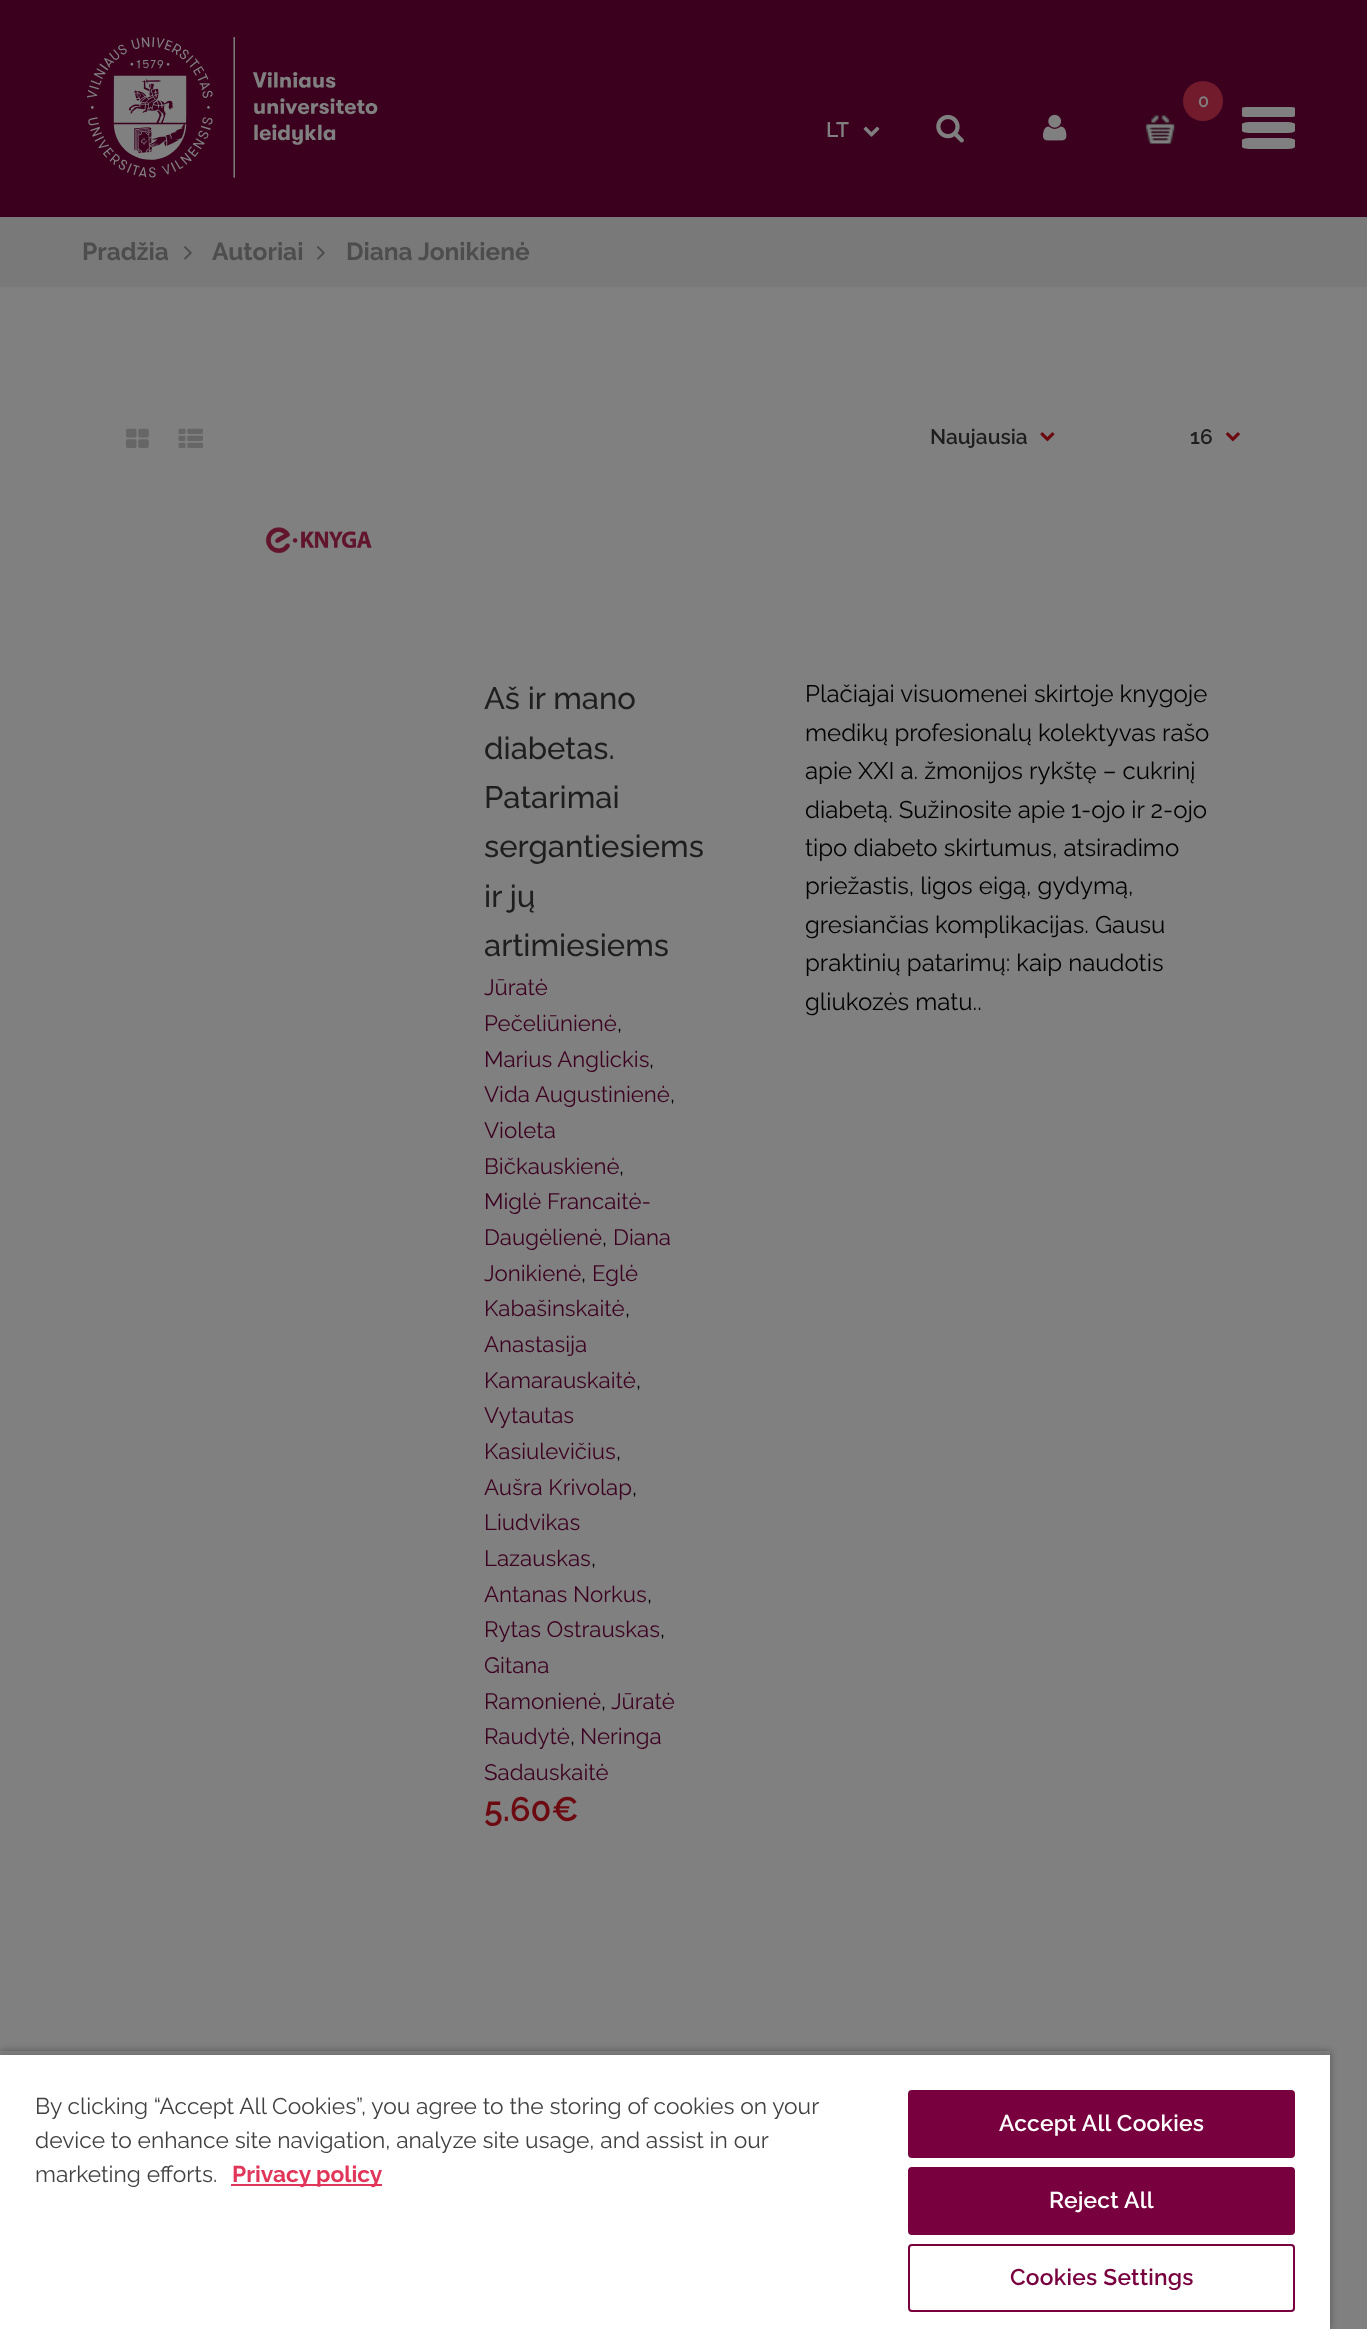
<svg xmlns="http://www.w3.org/2000/svg" width="1367" height="2329" viewBox="0 0 1367 2329">
  <style>
    .t1 { font: 600 18px Raleway; fill: #808080; }
    .t2 { font: 600 21px Raleway; fill: #808080; }
    .t3 { font: bold 24.5px Raleway; fill: #4d4d4d; }
    .t4 { font: 600 21px Raleway; fill: #1e1e1e; }
    .t5 { font: 500 31px Raleway; fill: #1e1e1e; }
    .t6 { font: 22.25px Raleway; fill: #3c0020; }
    .t7 { font: 22.25px Raleway; fill: #000; }
    .t8 { font: 600 34px Raleway; fill: #6d0910; }
    .t9 { font: 24px Raleway; fill: #000; }
    .t10 { font: 22.75px Raleway; fill: #414141; }
    .t11 { font: bold 22.75px Raleway; fill: #e13559; }
    .t12 { font: 600 22.75px Raleway; letter-spacing: 0.25px; fill: #fff; }
    .t13 { font: 600 22.75px Raleway; letter-spacing: 0.25px; fill: #78003f; }
  </style>
  <defs>
    <clipPath id="clip1"><path d="M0 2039H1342V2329H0ZM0 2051H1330V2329H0Z" clip-rule="evenodd"/></clipPath>
    <clipPath id="clip2"><rect x="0" y="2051" width="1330" height="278"/></clipPath>
  </defs>
  <rect width="100%" height="100%" fill="#808080"/>
  <rect x="0" y="0" width="1367" height="217" fill="#3c001f"/>
  <image x="87" y="37" width="291" height="141" href="images/1.png"/>
  <circle cx="1203" cy="101" r="20" fill="#711b2d"/>
  <text x="1198" y="107" class="t1">0</text>
  <image x="1146" y="115" width="29" height="29" href="images/2.png"/>
  <image x="1146" y="115" width="29" height="29" href="images/3.png"/>
  <text x="826" y="137" class="t2">LT</text>
  <image x="863" y="126" width="17" height="11" href="images/4.png"/>
  <image x="936" y="114" width="28" height="29" href="images/5.png"/>
  <image x="1043" y="114" width="24" height="27" href="images/6.png"/>
  <path d="M1250 107H1287C1291 107 1295 107 1295 108V116C1295 117 1291 117 1287 117H1250C1246 117 1242 117 1242 116V108C1242 107 1246 107 1250 107ZM1250 122H1287C1291 122 1295 123 1295 124V131C1295 132 1291 133 1287 133H1250C1246 133 1242 132 1242 131V124C1242 123 1246 122 1250 122ZM1250 138H1287C1291 138 1295 139 1295 140V147C1295 148 1291 149 1287 149H1250C1246 149 1242 148 1242 147V140C1242 139 1246 138 1250 138Z" fill="#808080"/>
  <rect x="0" y="217" width="1367" height="70" fill="#797979"/>
  <text x="82" y="260" class="t3">Pradžia</text>
  <image x="184" y="246" width="8" height="14" href="images/7.png"/>
  <text x="212" y="260" class="t3">Autoriai</text>
  <image x="317" y="246" width="8" height="14" href="images/7.png"/>
  <text x="346" y="260" class="t3">Diana Jonikienė</text>
  <image x="126" y="428" width="23" height="20" href="images/8.png"/>
  <image x="178" y="428" width="25" height="20" href="images/9.png"/>
  <text x="930" y="444" class="t4">Naujausia</text>
  <image x="1040" y="432" width="15" height="10" href="images/10.png"/>
  <text x="1190" y="444" class="t4">16</text>
  <image x="1225" y="432" width="15" height="10" href="images/11.png"/>
  <image x="265" y="527" width="107" height="27" href="images/12.png"/>
  <text x="484" y="709" class="t5">Aš ir mano</text>
  <text x="484" y="759" class="t5">diabetas.</text>
  <text x="484" y="808" class="t5">Patarimai</text>
  <text x="484" y="857" class="t5">sergantiesiems</text>
  <text x="484" y="907" class="t5">ir jų</text>
  <text x="484" y="956" class="t5">artimiesiems</text>
  <text x="484" y="995" class="t6">Jūratė</text>
  <text x="484" y="1031" class="t6">Pečeliūnienė</text>
  <text x="617" y="1031" class="t7">,</text>
  <text x="484" y="1067" class="t6">Marius Anglickis</text>
  <text x="649" y="1067" class="t7">,</text>
  <text x="484" y="1102" class="t6">Vida Augustinienė</text>
  <text x="670" y="1102" class="t7">,</text>
  <text x="484" y="1138" class="t6">Violeta</text>
  <text x="484" y="1174" class="t6">Bičkauskienė</text>
  <text x="619" y="1174" class="t7">,</text>
  <text x="484" y="1209" class="t6">Miglė Francaitė-</text>
  <text x="484" y="1245" class="t6">Daugėlienė</text>
  <text x="602" y="1245" class="t7">,</text>
  <text x="613" y="1245" class="t6">Diana</text>
  <text x="484" y="1281" class="t6">Jonikienė</text>
  <text x="581" y="1281" class="t7">,</text>
  <text x="592" y="1281" class="t6">Eglė</text>
  <text x="484" y="1316" class="t6">Kabašinskaitė</text>
  <text x="625" y="1316" class="t7">,</text>
  <text x="484" y="1352" class="t6">Anastasija</text>
  <text x="484" y="1388" class="t6">Kamarauskaitė</text>
  <text x="636" y="1388" class="t7">,</text>
  <text x="484" y="1423" class="t6">Vytautas</text>
  <text x="484" y="1459" class="t6">Kasiulevičius</text>
  <text x="616" y="1459" class="t7">,</text>
  <text x="484" y="1495" class="t6">Aušra Krivolap</text>
  <text x="632" y="1495" class="t7">,</text>
  <text x="484" y="1530" class="t6">Liudvikas</text>
  <text x="484" y="1566" class="t6">Lazauskas</text>
  <text x="591" y="1566" class="t7">,</text>
  <text x="484" y="1602" class="t6">Antanas Norkus</text>
  <text x="647" y="1602" class="t7">,</text>
  <text x="484" y="1637" class="t6">Rytas Ostrauskas</text>
  <text x="660" y="1637" class="t7">,</text>
  <text x="484" y="1673" class="t6">Gitana</text>
  <text x="484" y="1709" class="t6">Ramonienė</text>
  <text x="601" y="1709" class="t7">,</text>
  <text x="611" y="1709" class="t6">Jūratė</text>
  <text x="484" y="1744" class="t6">Raudytė</text>
  <text x="570" y="1744" class="t7">,</text>
  <text x="580" y="1744" class="t6">Neringa</text>
  <text x="484" y="1780" class="t6">Sadauskaitė</text>
  <text x="484" y="1821" class="t8">5.60€</text>
  <text x="805" y="702" class="t9">Plačiajai visuomenei skirtoje knygoje</text>
  <text x="805" y="741" class="t9">medikų profesionalų kolektyvas rašo</text>
  <text x="805" y="779" class="t9">apie XXI a. žmonijos rykštę – cukrinį</text>
  <text x="805" y="818" class="t9">diabetą. Sužinosite apie 1-ojo ir 2-ojo</text>
  <text x="805" y="856" class="t9">tipo diabeto skirtumus, atsiradimo</text>
  <text x="805" y="894" class="t9">priežastis, ligos eigą, gydymą,</text>
  <text x="805" y="933" class="t9">gresiančias komplikacijas. Gausu</text>
  <text x="805" y="971" class="t9">praktinių patarimų: kaip naudotis</text>
  <text x="805" y="1010" class="t9">gliukozės matu..</text>
  <g clip-path="url(#clip1)">
    <rect x="0" y="2051" width="1330" height="278" fill="#00000059" filter="blur(3.5px)"/>
  </g>
  <g clip-path="url(#clip2)">
    <rect x="0" y="2055" width="1330" height="274" fill="#00000033" filter="blur(3.5px)"/>
  </g>
  <rect x="0" y="2055" width="1330" height="274" fill="#fff"/>
  <text x="35" y="2114" class="t10">By clicking “Accept All Cookies”, you agree to the storing of cookies on your</text>
  <text x="35" y="2148" class="t10">device to enhance site navigation, analyze site usage, and assist in our</text>
  <text x="35" y="2182" class="t10">marketing efforts.</text>
  <rect x="231" y="2184" width="151" height="2" fill="#e13559"/>
  <text x="232" y="2182" class="t11">Privacy policy</text>
  <rect x="909" y="2091" width="385" height="66" rx="3" fill="#78003f" stroke="#78003f" stroke-width="2"/>
  <text x="999" y="2131" class="t12">Accept All Cookies</text>
  <rect x="909" y="2168" width="385" height="66" rx="3" fill="#78003f" stroke="#78003f" stroke-width="2"/>
  <text x="1049" y="2208" class="t12">Reject All</text>
  <rect x="909" y="2245" width="385" height="66" rx="3" fill="none" stroke="#78003f" stroke-width="2"/>
  <text x="1010" y="2285" class="t13">Cookies Settings</text>
</svg>
